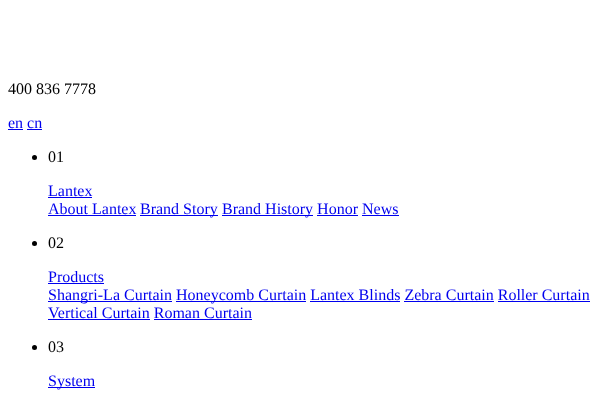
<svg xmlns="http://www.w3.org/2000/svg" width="600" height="401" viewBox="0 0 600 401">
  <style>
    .t1 { font: 16px Liberation Serif; fill: #000; }
    .t2 { font: 16px Liberation Serif; fill: #00e; }
  </style>
  <rect width="100%" height="100%" fill="#fff"/>
  <text x="8" y="94" class="t1">400 836 7778</text>
  <text x="8" y="128" class="t2">en cn</text>
  <rect x="8" y="129" width="15" height="1" fill="#00e"/>
  <rect x="27" y="129" width="15" height="1" fill="#00e"/>
  <circle cx="34.5" cy="157.5" r="2.5" fill="#000"/>
  <text x="48" y="162" class="t1">01</text>
  <text x="48" y="196" class="t2">Lantex</text>
  <rect x="48" y="197" width="44" height="1" fill="#00e"/>
  <text x="48" y="214" class="t2">About Lantex</text>
  <rect x="48" y="215" width="88" height="1" fill="#00e"/>
  <rect x="140" y="215" width="78" height="1" fill="#00e"/>
  <text x="140" y="214" class="t2">Brand Story</text>
  <rect x="222" y="215" width="91" height="1" fill="#00e"/>
  <text x="222" y="214" class="t2">Brand History Honor News</text>
  <rect x="317" y="215" width="41" height="1" fill="#00e"/>
  <rect x="362" y="215" width="37" height="1" fill="#00e"/>
  <circle cx="34.5" cy="243.5" r="2.5" fill="#000"/>
  <text x="48" y="248" class="t1">02</text>
  <text x="48" y="282" class="t2">Products</text>
  <rect x="48" y="283" width="56" height="1" fill="#00e"/>
  <rect x="48" y="301" width="124" height="1" fill="#00e"/>
  <text x="48" y="300" class="t2">Shangri-La Curtain</text>
  <rect x="176" y="301" width="130" height="1" fill="#00e"/>
  <text x="176" y="300" class="t2">Honeycomb Curtain Lantex Blinds Zebra Curtain Roller Curtain</text>
  <rect x="310" y="301" width="90" height="1" fill="#00e"/>
  <rect x="404" y="301" width="90" height="1" fill="#00e"/>
  <rect x="498" y="301" width="92" height="1" fill="#00e"/>
  <text x="48" y="318" class="t2">Vertical Curtain Roman Curtain</text>
  <rect x="48" y="319" width="102" height="1" fill="#00e"/>
  <rect x="154" y="319" width="98" height="1" fill="#00e"/>
  <circle cx="34.5" cy="347.5" r="2.5" fill="#000"/>
  <text x="48" y="352" class="t1">03</text>
  <rect x="48" y="387" width="47" height="1" fill="#00e"/>
  <text x="48" y="386" class="t2">System</text>
</svg>
